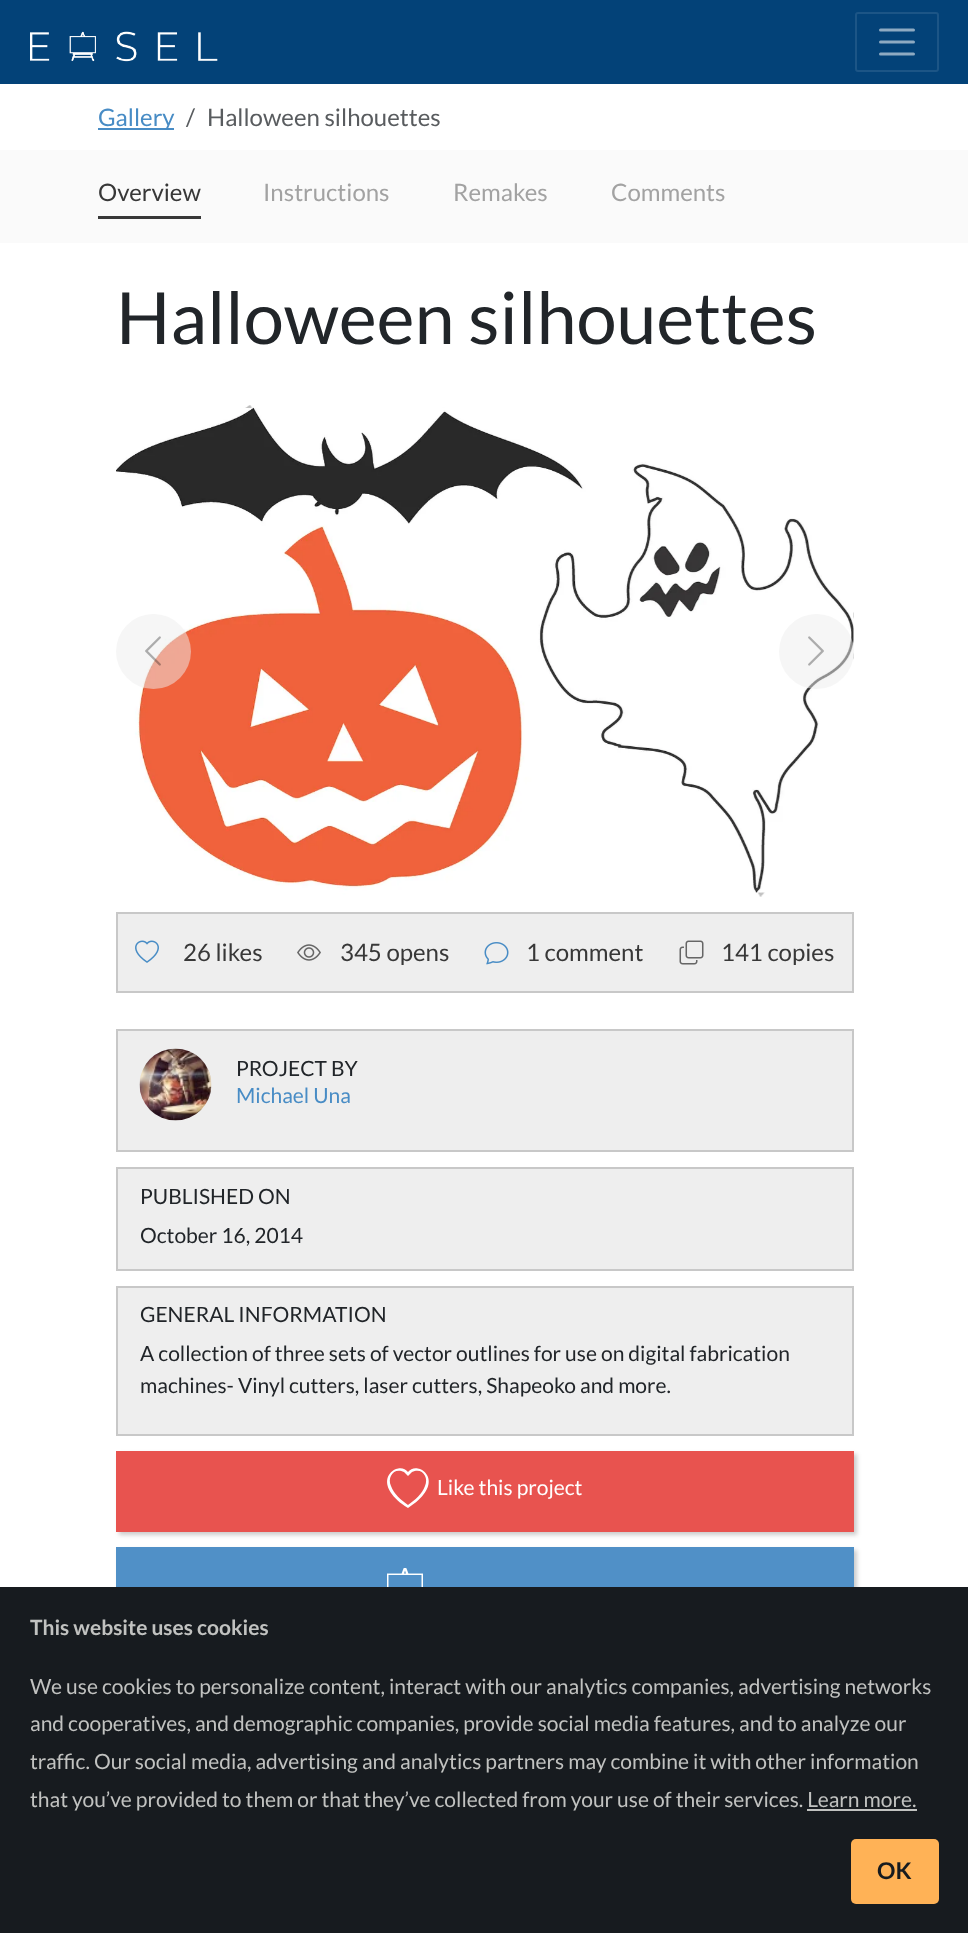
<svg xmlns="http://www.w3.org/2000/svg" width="968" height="1933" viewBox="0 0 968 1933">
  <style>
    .t1 { font: 24px Lato; fill: #488cc5; }
    .t2 { font: 24px Lato; fill: #595c5f; }
    .t3 { font: 24px Lato; fill: #383838; }
    .t4 { font: 24px Lato; fill: #a2a2a2; }
    .t5 { font: 72px Lato; fill: #212529; }
    .t6 { font: 21px Lato; fill: #212529; }
    .t7 { font: 21px Lato; fill: #488cc5; }
    .t8 { font: 21px Lato; fill: #fff; }
    .t9 { font: bold 21px Lato; fill: #c1c2c0; }
    .t10 { font: 21px Lato; fill: #c1c2c0; }
    .t11 { font: bold 23px Lato; fill: #171b1f; }
  </style>
  <rect width="100%" height="100%" fill="#fff"/>
  <rect x="0" y="0" width="968" height="84" fill="#034278"/>
  <image x="30" y="31" width="188" height="31" href="images/1.png"/>
  <rect x="856" y="13" width="82" height="58" rx="2" fill="none" stroke="#1c5586" stroke-width="2"/>
  <path d="M880.5 30H913.5M880.5 42H913.5M880.5 54H913.5" fill="none" stroke="#8eaac2" stroke-width="3" stroke-linecap="round"/>
  <rect x="98" y="128" width="76" height="2" fill="#488cc5"/>
  <text x="98" y="126" class="t1">Gallery</text>
  <text x="186" y="126" class="t2">/</text>
  <text x="207" y="126" class="t2">Halloween silhouettes</text>
  <rect x="0" y="150" width="968" height="93" fill="#fafafa"/>
  <rect x="98" y="216" width="103" height="3" fill="#383838"/>
  <text x="98" y="201" class="t3">Overview</text>
  <text x="263" y="201" class="t4">Instructions</text>
  <text x="453" y="201" class="t4">Remakes</text>
  <text x="611" y="201" class="t4">Comments</text>
  <text x="116" y="344" class="t5">Halloween silhouettes</text>
  <image x="116" y="405" width="738" height="492" href="images/2.png"/>
  <image x="116" y="407" width="738" height="486" href="images/3.png"/>
  <circle cx="153.5" cy="651.5" r="37.5" fill="#eeeeee80"/>
  <image x="145" y="636" width="16" height="30" href="images/4.png"/>
  <circle cx="816.5" cy="651.5" r="37.5" fill="#eeeeee80"/>
  <image x="808" y="636" width="16" height="30" href="images/5.png"/>
  <rect x="117" y="913" width="736" height="79" fill="#eee" stroke="#c8c8c8" stroke-width="2"/>
  <image x="135" y="940" width="24" height="23" href="images/6.png"/>
  <text x="183" y="961" class="t3">26 likes</text>
  <image x="297" y="944" width="24" height="17" href="images/7.png"/>
  <text x="340" y="961" class="t3">345 opens</text>
  <image x="484" y="942" width="25" height="23" href="images/8.png"/>
  <text x="526" y="961" class="t3">1 comment</text>
  <image x="679" y="940" width="25" height="25" href="images/9.png"/>
  <text x="721" y="961" class="t3">141 copies</text>
  <rect x="117" y="1030" width="736" height="121" fill="#eee" stroke="#c8c8c8" stroke-width="2"/>
  <image x="139" y="1048" width="73" height="73" href="images/10.png"/>
  <text x="236" y="1076" class="t6">PROJECT BY</text>
  <text x="236" y="1103" class="t7">Michael Una</text>
  <rect x="117" y="1168" width="736" height="102" fill="#eee" stroke="#c8c8c8" stroke-width="2"/>
  <text x="140" y="1204" class="t6">PUBLISHED ON</text>
  <text x="140" y="1243" class="t6">October 16, 2014</text>
  <rect x="117" y="1287" width="736" height="148" fill="#eee" stroke="#c8c8c8" stroke-width="2"/>
  <text x="140" y="1322" class="t6">GENERAL INFORMATION</text>
  <text x="140" y="1361" class="t6">A collection of three sets of vector outlines for use on digital fabrication</text>
  <text x="140" y="1393" class="t6">machines- Vinyl cutters, laser cutters, Shapeoko and more.</text>
  <rect x="119" y="1454" width="738" height="81" fill="#00000033" filter="blur(2px)"/>
  <rect x="116" y="1451" width="738" height="81" fill="#e8534f"/>
  <path d="M408 1476L404 1472C394 1467 387 1477 391 1486C394 1494 401 1500 408 1505C415 1500 422 1494 425 1486C429 1477 422 1467 412 1472ZM408 1508C366 1481 399 1459 408 1472C417 1459 450 1481 408 1508Z" fill="#fff"/>
  <text x="437" y="1495" class="t8">Like this project</text>
  <rect x="119" y="1550" width="738" height="81" fill="#00000033" filter="blur(2px)"/>
  <rect x="116" y="1547" width="738" height="40" fill="#5090c7"/>
  <image x="387" y="1568" width="36" height="19" href="images/11.png"/>
  <rect x="0" y="1587" width="968" height="346" fill="#171b1f"/>
  <text x="30" y="1635" class="t9">This website uses cookies</text>
  <text x="30" y="1694" class="t10">We use cookies to personalize content, interact with our analytics companies, advertising networks</text>
  <text x="30" y="1731" class="t10">and cooperatives, and demographic companies, provide social media features, and to analyze our</text>
  <text x="30" y="1769" class="t10">traffic. Our social media, advertising and analytics partners may combine it with other information</text>
  <text x="30" y="1807" class="t10">that you’ve provided to them or that they’ve collected from your use of their services. Learn more.</text>
  <rect x="807" y="1809" width="110" height="2" fill="#c1c2c0"/>
  <rect x="851" y="1839" width="88" height="65" rx="5" fill="#ffb256"/>
  <text x="877" y="1879" class="t11">OK</text>
</svg>
